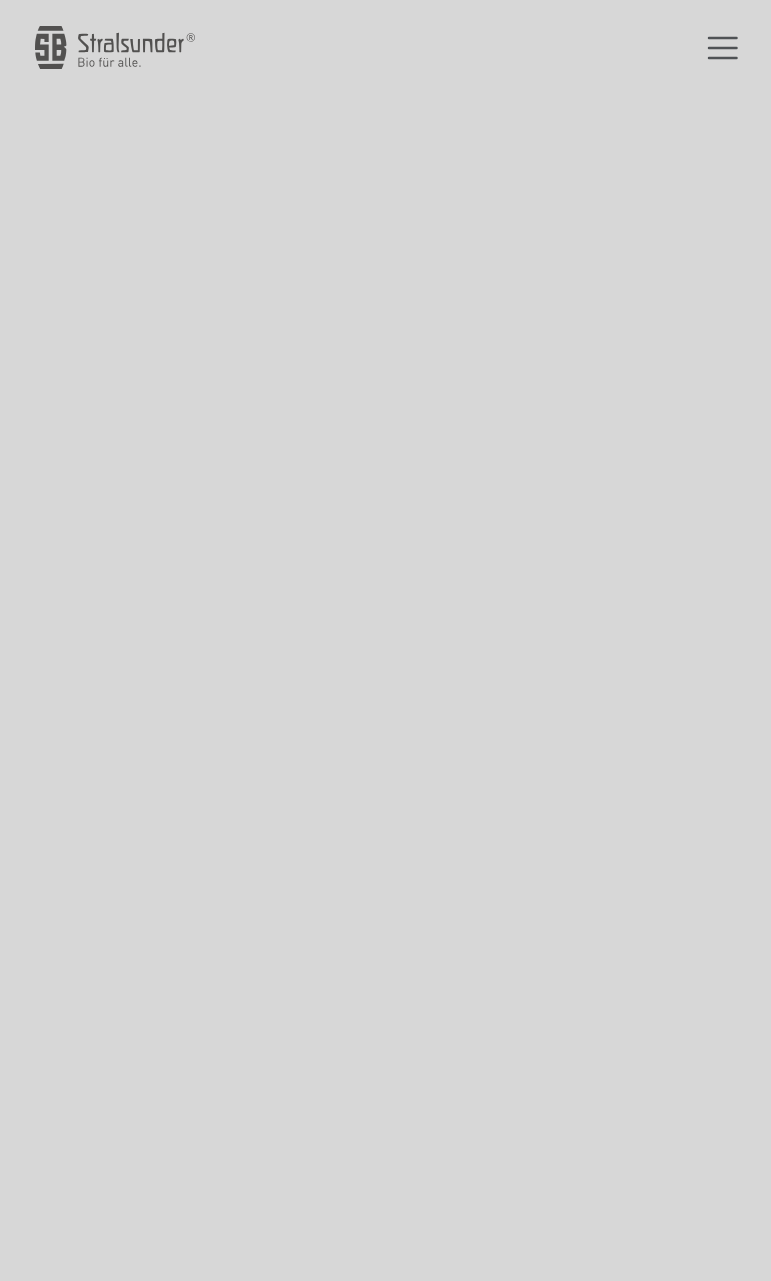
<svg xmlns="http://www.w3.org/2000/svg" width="771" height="1281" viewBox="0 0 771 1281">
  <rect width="100%" height="100%" fill="#d7d7d7"/>
  <image x="35" y="26" width="160" height="43" href="images/1.png"/>
  <path d="M709 38H736.5M709 48H736.5M709 58H736.5" fill="none" stroke="#4f5255" stroke-width="2.5" stroke-linecap="round"/>
</svg>
